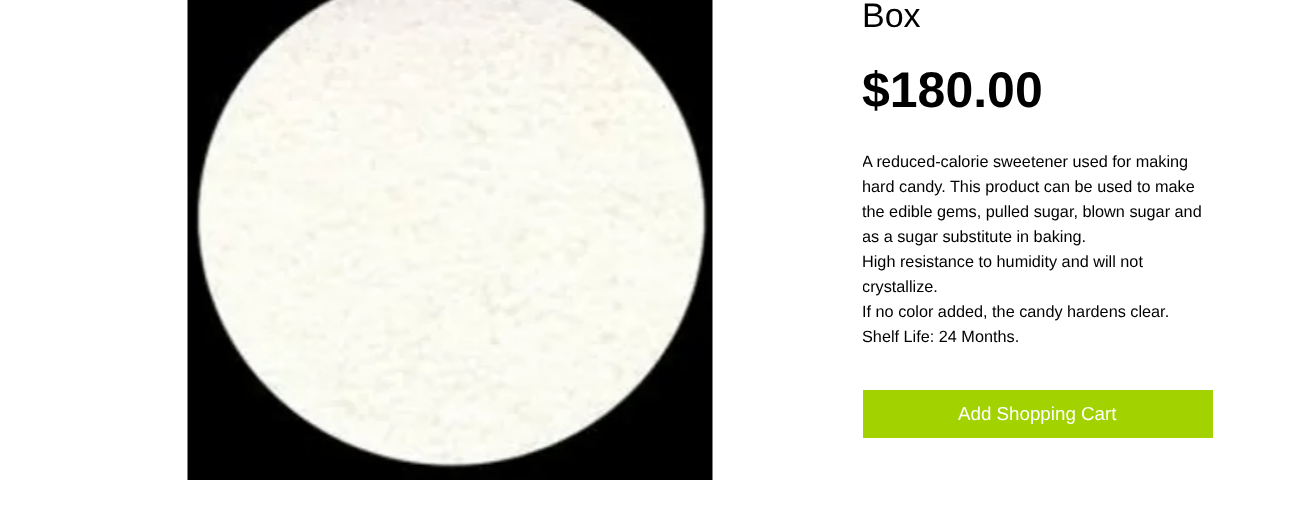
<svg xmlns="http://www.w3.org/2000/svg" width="1298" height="510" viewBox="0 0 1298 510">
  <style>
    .t1 { font: 34px Liberation Sans; fill: #000; }
    .t2 { font: bold 50px Liberation Sans; fill: #000; }
    .t3 { font: 16.25px Liberation Sans; fill: #000; }
    .t4 { font: 18.75px Liberation Sans; fill: #fff; }
  </style>
  <defs>
    <clipPath id="clip1"><rect x="863" y="150" width="350" height="200"/></clipPath>
  </defs>
  <rect width="100%" height="100%" fill="#fff"/>
  <image x="187" y="0" width="526" height="480" href="images/1.png"/>
  <text x="862" y="27" class="t1">Box</text>
  <text x="862" y="107" class="t2">$180.00</text>
  <g clip-path="url(#clip1)">
    <text x="862" y="167" class="t3">A reduced-calorie sweetener used for making</text>
  </g>
  <text x="862" y="192" class="t3">hard candy. This product can be used to make</text>
  <text x="862" y="217" class="t3">the edible gems, pulled sugar, blown sugar and</text>
  <g clip-path="url(#clip1)">
    <text x="862" y="242" class="t3">as a sugar substitute in baking.</text>
  </g>
  <text x="862" y="267" class="t3">High resistance to humidity and will not</text>
  <g clip-path="url(#clip1)">
    <text x="862" y="292" class="t3">crystallize.</text>
  </g>
  <text x="862" y="317" class="t3">If no color added, the candy hardens clear.</text>
  <text x="862" y="342" class="t3">Shelf Life: 24 Months.</text>
  <rect x="863" y="390" width="350" height="48" fill="#a2d300"/>
  <text x="958" y="420" class="t4">Add Shopping Cart</text>
</svg>
